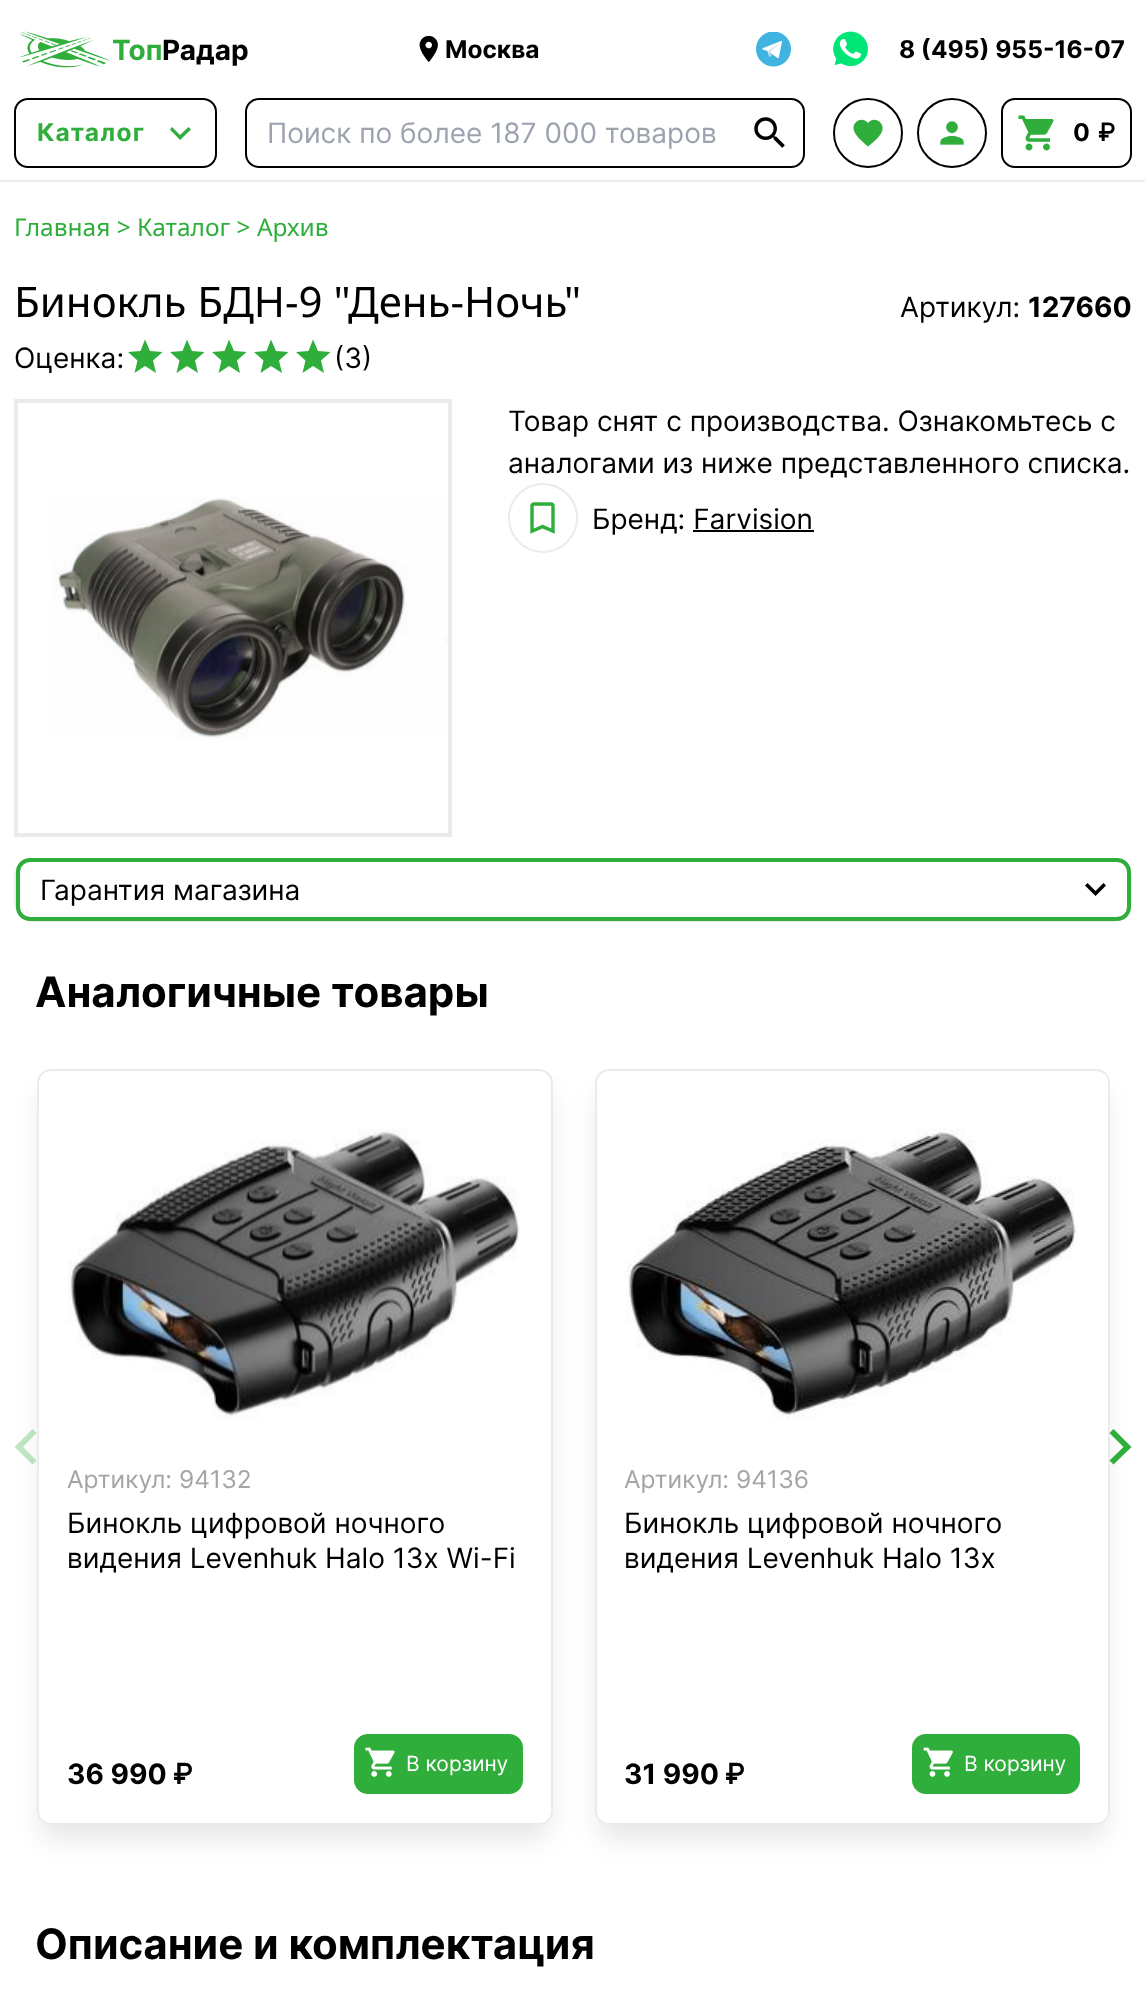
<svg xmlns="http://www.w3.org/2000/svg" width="1145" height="1993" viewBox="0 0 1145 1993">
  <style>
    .t1 { font: bold 28px Inter; fill: #2fae3b; }
    .t2 { font: bold 28px Inter; fill: #000; }
    .t3 { font: bold 24.5px Inter; fill: #000; }
    .t4 { font: bold 24.5px Inter; letter-spacing: 1.25px; fill: #2fae3b; }
    .t5 { font: 28px Inter; fill: #9ca3af; }
    .t6 { font: bold 24.5px Inter; letter-spacing: 1.25px; fill: #000; }
    .t7 { font: bold 24.5px 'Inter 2'; letter-spacing: 1.25px; fill: #000; }
    .t8 { font: 24.5px Noto Sans; fill: #2fae3b; }
    .t9 { font: 42px Noto Sans; fill: #000; }
    .t10 { font: 28px Inter; fill: #000; }
    .t11 { font: bold 42px Inter; fill: #000; }
    .t12 { font: 24.5px Inter; fill: #a5a5a5; }
    .t13 { font: bold 28px 'Inter 2'; fill: #000; }
    .t14 { font: 21px Inter; fill: #fff; }
  </style>
  <defs>
    <clipPath id="clip1"><path d="M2 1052H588V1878H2ZM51 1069H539C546.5 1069 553 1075.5 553 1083V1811C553 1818.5 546.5 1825 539 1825H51C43.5 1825 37 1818.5 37 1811V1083C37 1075.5 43.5 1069 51 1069Z" clip-rule="evenodd"/></clipPath>
    <clipPath id="clip2"><path d="M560 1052H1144V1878H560ZM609 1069H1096C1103.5 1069 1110 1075.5 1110 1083V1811C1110 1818.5 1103.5 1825 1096 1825H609C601.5 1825 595 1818.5 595 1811V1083C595 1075.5 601.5 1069 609 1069Z" clip-rule="evenodd"/></clipPath>
  </defs>
  <rect width="100%" height="100%" fill="#fff"/>
  <image x="18" y="31" width="93" height="37" href="images/1.png"/>
  <text x="112" y="60" class="t1">Топ</text>
  <text x="162" y="60" class="t2">Радар</text>
  <image x="419" y="35" width="19" height="27" href="images/2.png"/>
  <text x="445" y="58" class="t3">Москва</text>
  <image x="756" y="32" width="35" height="35" href="images/3.png"/>
  <image x="833" y="31" width="35" height="36" href="images/4.png"/>
  <text x="899" y="58" class="t3">8 (495) 955-16-07</text>
  <rect x="0" y="180" width="1145" height="2" fill="#ebebeb"/>
  <rect x="15" y="99" width="201" height="68" rx="13" fill="none" stroke="#000" stroke-width="2"/>
  <text x="37" y="141" class="t4">Каталог</text>
  <path d="M188.5 127L191 129.5L180 140L170 129.5L172 127L180 135Z" fill="#2fae3b"/>
  <rect x="246" y="99" width="558" height="68" rx="13" fill="none" stroke="#000" stroke-width="2"/>
  <text x="267" y="143" class="t5">Поиск по более 187 000 товаров</text>
  <image x="754" y="117" width="31" height="31" href="images/5.png"/>
  <circle cx="868" cy="133" r="34" fill="none" stroke="#000" stroke-width="2"/>
  <path d="M868 146.5C863.5 142.5 857 137.5 854.5 132C850 123 861.5 115 868 123C874 115.5 885.5 122.5 882 131.5C879.5 137.5 873 142.5 868 146.5Z" fill="#2fae3b"/>
  <circle cx="952" cy="133" r="34" fill="none" stroke="#000" stroke-width="2"/>
  <image x="940" y="121" width="24" height="24" href="images/6.png"/>
  <rect x="1002" y="99" width="129" height="68" rx="13" fill="none" stroke="#000" stroke-width="2"/>
  <image x="1018" y="115" width="36" height="36" href="images/7.png"/>
  <text x="1073" y="141" class="t6">0</text>
  <text x="1098" y="141" class="t7">₽</text>
  <text x="14" y="236" class="t8">Главная &gt; Каталог &gt; Архив</text>
  <text x="14" y="317" class="t9">Бинокль БДН-9 "День-Ночь"</text>
  <text x="900" y="317" class="t10">Артикул:</text>
  <text x="1028" y="317" class="t2">127660</text>
  <text x="14" y="368" class="t10">Оценка:</text>
  <path d="M145 366L134.5 373L137.5 360.5L128 352L140.5 351L145 339.5L150 351L162.5 352L153 360.5L156 373Z" fill="#2fae3b"/>
  <path d="M187 366L176.5 373L179.5 360.5L170 352L182.5 351L187 339.5L192 351L204.5 352L195 360.5L198 373Z" fill="#2fae3b"/>
  <path d="M229 366L218.5 373L221.5 360.5L212 352L224.5 351L229 339.5L234 351L246.5 352L237 360.5L240 373Z" fill="#2fae3b"/>
  <path d="M271 366L260.5 373L263.5 360.5L254 352L266.5 351L271 339.5L276 351L288.5 352L279 360.5L282 373Z" fill="#2fae3b"/>
  <path d="M313 366L302.5 373L305.5 360.5L296 352L308.5 351L313 339.5L318 351L330.5 352L321 360.5L324 373Z" fill="#2fae3b"/>
  <text x="334" y="368" class="t10">(3)</text>
  <rect x="16" y="401" width="434" height="434" fill="none" stroke="#ebebeb" stroke-width="4"/>
  <image x="52" y="497" width="396" height="242" href="images/8.png"/>
  <text x="508" y="431" class="t10">Товар снят с производства. Ознакомьтесь с</text>
  <text x="508" y="473" class="t10">аналогами из ниже представленного списка.</text>
  <circle cx="543" cy="518" r="34" fill="none" stroke="#ebebeb" stroke-width="2"/>
  <image x="530" y="502" width="25" height="32" href="images/9.png"/>
  <text x="592" y="529" class="t10">Бренд: Farvision</text>
  <rect x="693" y="530" width="121" height="2" fill="#000"/>
  <path d="M35 858H1111C1123 858 1132 867 1132 878V901C1132 913 1123 922 1111 922H35C23 922 14 913 14 901V878C14 867 23 858 35 858ZM35 858H1111C1122 858 1130 867 1130 878V901C1130 912 1122 920 1111 920H35C24 920 16 912 16 901V878C16 867 24 858 35 858Z" fill="#ebebeb" fill-rule="evenodd"/>
  <rect x="18" y="860" width="1111" height="59" rx="12" fill="none" stroke="#2fae3b" stroke-width="4"/>
  <text x="40" y="900" class="t10">Гарантия магазина</text>
  <path d="M1103.5 883L1106 885.5L1095.5 896L1085 885.5L1087.5 883L1095.5 891Z" fill="#000"/>
  <text x="35" y="1007" class="t11">Аналогичные товары</text>
  <g clip-path="url(#clip1)">
    <rect x="42" y="1092" width="506" height="746" rx="9" fill="#0000001a" filter="blur(13px)"/>
  </g>
  <path d="M32.5 1429L36.5 1433L23 1447L36.5 1460.5L32.5 1464.5L14.5 1447Z" fill="#2fae3b4d"/>
  <g clip-path="url(#clip2)">
    <rect x="600" y="1092" width="504" height="746" rx="9" fill="#0000001a" filter="blur(13px)"/>
  </g>
  <rect x="596" y="1070" width="513" height="754" rx="13" fill="none" stroke="#ebebeb" stroke-width="2"/>
  <path d="M1113.5 1429L1109.5 1433L1123.5 1447L1109.5 1460.5L1113.5 1464.5L1131.5 1447Z" fill="#2fae3b"/>
  <rect x="38" y="1070" width="514" height="754" rx="13" fill="none" stroke="#ebebeb" stroke-width="2"/>
  <image x="68" y="1127" width="452" height="293" href="images/10.png"/>
  <text x="67" y="1488" class="t12">Артикул: 94132</text>
  <text x="67" y="1533" class="t10">Бинокль цифровой ночного</text>
  <text x="67" y="1568" class="t10">видения Levenhuk Halo 13x Wi-Fi</text>
  <text x="67" y="1784" class="t2">36 990</text>
  <text x="173" y="1784" class="t13">₽</text>
  <rect x="356" y="1736" width="165" height="56" rx="12" fill="#2fae3b" stroke="#2fae3b" stroke-width="4"/>
  <image x="365" y="1747" width="30" height="30" href="images/11.png"/>
  <text x="406" y="1771" class="t14">В корзину</text>
  <image x="626" y="1127" width="452" height="293" href="images/12.png"/>
  <text x="624" y="1488" class="t12">Артикул: 94136</text>
  <text x="624" y="1533" class="t10">Бинокль цифровой ночного</text>
  <text x="624" y="1568" class="t10">видения Levenhuk Halo 13x</text>
  <text x="624" y="1784" class="t2">31 990</text>
  <text x="725" y="1784" class="t13">₽</text>
  <rect x="914" y="1736" width="164" height="56" rx="12" fill="#2fae3b" stroke="#2fae3b" stroke-width="4"/>
  <image x="923" y="1747" width="30" height="30" href="images/13.png"/>
  <text x="964" y="1771" class="t14">В корзину</text>
  <text x="35" y="1959" class="t11">Описание и комплектация</text>
</svg>
